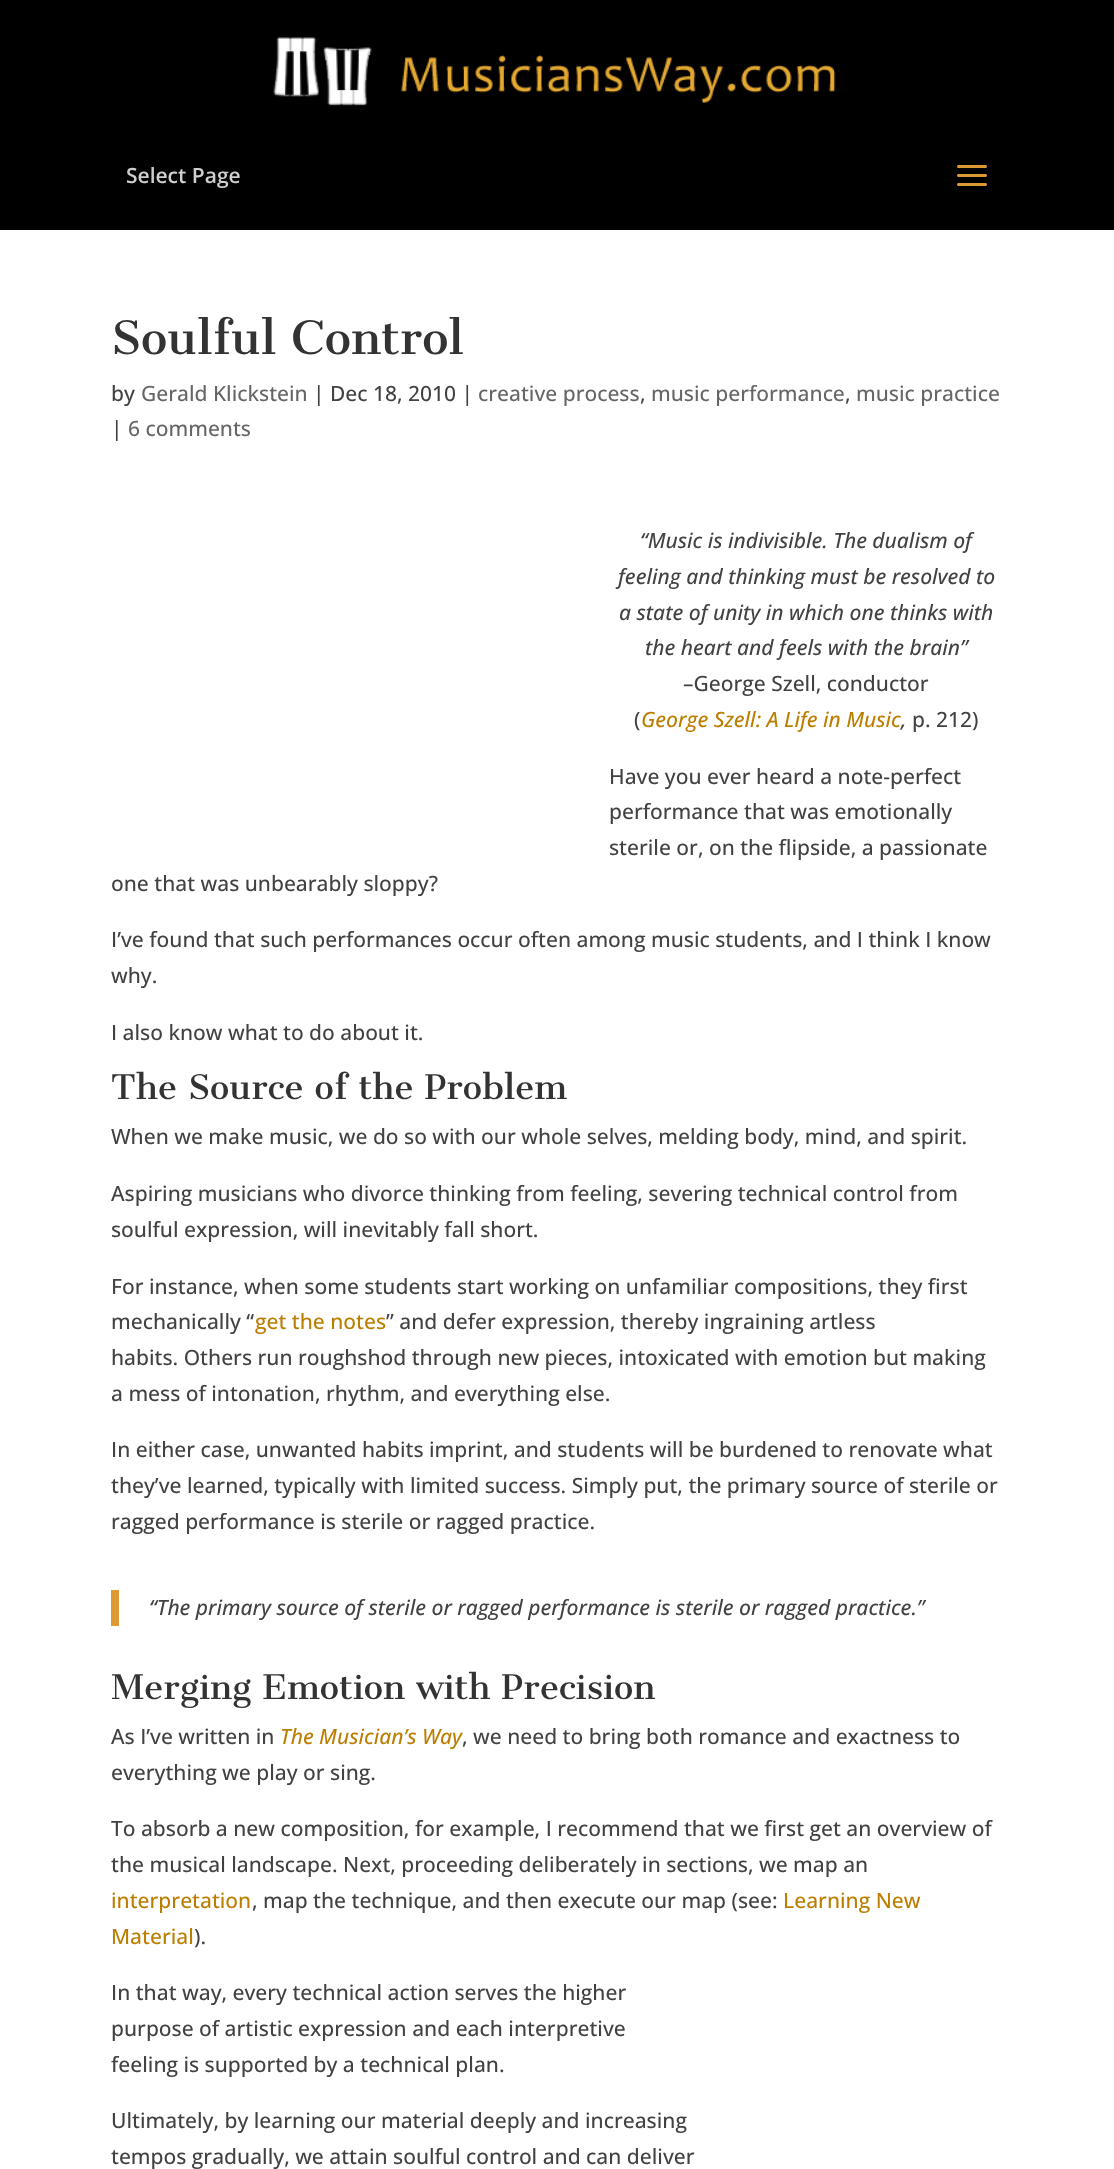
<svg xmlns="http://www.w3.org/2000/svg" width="1114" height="2169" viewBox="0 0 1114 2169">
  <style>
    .t1 { font: 600 21px Open Sans; fill: #cfcfcf; }
    .t2 { font: 45px Cantata One; fill: #333; }
    .t3 { font: 500 21px Open Sans; fill: #424242; }
    .t4 { font: 500 21px Open Sans; fill: #666; }
    .t5 { font: italic 500 21px Open Sans; fill: #424242; }
    .t6 { font: italic 500 21px Open Sans; fill: #bc7e01; }
    .t7 { font: 33px Cantata One; fill: #333; }
    .t8 { font: 500 21px Open Sans; fill: #bc7e01; }
  </style>
  <rect width="100%" height="100%" fill="#fff"/>
  <rect x="0" y="0" width="1114" height="230" fill="#000"/>
  <image x="273" y="37" width="563" height="69" href="images/1.png"/>
  <text x="126" y="183" class="t1">Select Page</text>
  <image x="957" y="165" width="30" height="21" href="images/2.png"/>
  <text x="111" y="354" class="t2">Soulful Control</text>
  <text x="111" y="401" class="t3">by</text>
  <text x="141" y="401" class="t4">Gerald Klickstein</text>
  <text x="313" y="401" class="t3">| Dec 18, 2010 |</text>
  <text x="478" y="401" class="t4">creative process</text>
  <text x="640" y="401" class="t3">,</text>
  <text x="651" y="401" class="t4">music performance</text>
  <text x="845" y="401" class="t3">,</text>
  <text x="856" y="401" class="t4">music practice</text>
  <text x="111" y="436" class="t3">|</text>
  <text x="128" y="436" class="t4">6 comments</text>
  <text x="640" y="548" class="t5">“Music is indivisible. The dualism of</text>
  <text x="618" y="584" class="t5">feeling and thinking must be resolved to</text>
  <text x="619" y="620" class="t5">a state of unity in which one thinks with</text>
  <text x="645" y="655" class="t5">the heart and feels with the brain”</text>
  <text x="683" y="691" class="t3">–George Szell, conductor</text>
  <text x="634" y="727" class="t3">(</text>
  <text x="641" y="727" class="t6">George Szell: A Life in Music</text>
  <text x="901" y="727" class="t5">,</text>
  <text x="912" y="727" class="t3">p. 212)</text>
  <text x="609" y="784" class="t3">Have you ever heard a note-perfect</text>
  <text x="609" y="819" class="t3">performance that was emotionally</text>
  <text x="609" y="855" class="t3">sterile or, on the flipside, a passionate</text>
  <text x="111" y="891" class="t3">one that was unbearably sloppy?</text>
  <text x="111" y="947" class="t3">I’ve found that such performances occur often among music students, and I think I know</text>
  <text x="111" y="983" class="t3">why.</text>
  <text x="111" y="1040" class="t3">I also know what to do about it.</text>
  <text x="111" y="1099" class="t7">The Source of the Problem</text>
  <text x="111" y="1144" class="t3">When we make music, we do so with our whole selves, melding body, mind, and spirit.</text>
  <text x="111" y="1201" class="t3">Aspiring musicians who divorce thinking from feeling, severing technical control from</text>
  <text x="111" y="1237" class="t3">soulful expression, will inevitably fall short.</text>
  <text x="111" y="1294" class="t3">For instance, when some students start working on unfamiliar compositions, they first</text>
  <text x="111" y="1329" class="t3">mechanically “</text>
  <text x="255" y="1329" class="t8">get the notes</text>
  <text x="386" y="1329" class="t3">” and defer expression, thereby ingraining artless</text>
  <text x="111" y="1365" class="t3">habits. Others run roughshod through new pieces, intoxicated with emotion but making</text>
  <text x="111" y="1401" class="t3">a mess of intonation, rhythm, and everything else.</text>
  <text x="111" y="1457" class="t3">In either case, unwanted habits imprint, and students will be burdened to renovate what</text>
  <text x="111" y="1493" class="t3">they’ve learned, typically with limited success. Simply put, the primary source of sterile or</text>
  <text x="111" y="1529" class="t3">ragged performance is sterile or ragged practice.</text>
  <rect x="111" y="1590" width="8" height="36" fill="#d93"/>
  <text x="149" y="1615" class="t5">“The primary source of sterile or ragged performance is sterile or ragged practice.”</text>
  <text x="111" y="1699" class="t7">Merging Emotion with Precision</text>
  <text x="111" y="1744" class="t3">As I’ve written in</text>
  <text x="280" y="1744" class="t6">The Musician’s Way</text>
  <text x="462" y="1744" class="t3">, we need to bring both romance and exactness to</text>
  <text x="111" y="1780" class="t3">everything we play or sing.</text>
  <text x="111" y="1836" class="t3">To absorb a new composition, for example, I recommend that we first get an overview of</text>
  <text x="111" y="1872" class="t3">the musical landscape. Next, proceeding deliberately in sections, we map an</text>
  <text x="111" y="1908" class="t8">interpretation</text>
  <text x="252" y="1908" class="t3">, map the technique, and then execute our map (see:</text>
  <text x="783" y="1908" class="t8">Learning New</text>
  <text x="111" y="1944" class="t8">Material</text>
  <text x="194" y="1944" class="t3">).</text>
  <text x="111" y="2000" class="t3">In that way, every technical action serves the higher</text>
  <text x="111" y="2036" class="t3">purpose of artistic expression and each interpretive</text>
  <text x="111" y="2072" class="t3">feeling is supported by a technical plan.</text>
  <text x="111" y="2128" class="t3">Ultimately, by learning our material deeply and increasing</text>
  <text x="111" y="2164" class="t3">tempos gradually, we attain soulful control and can deliver</text>
</svg>
